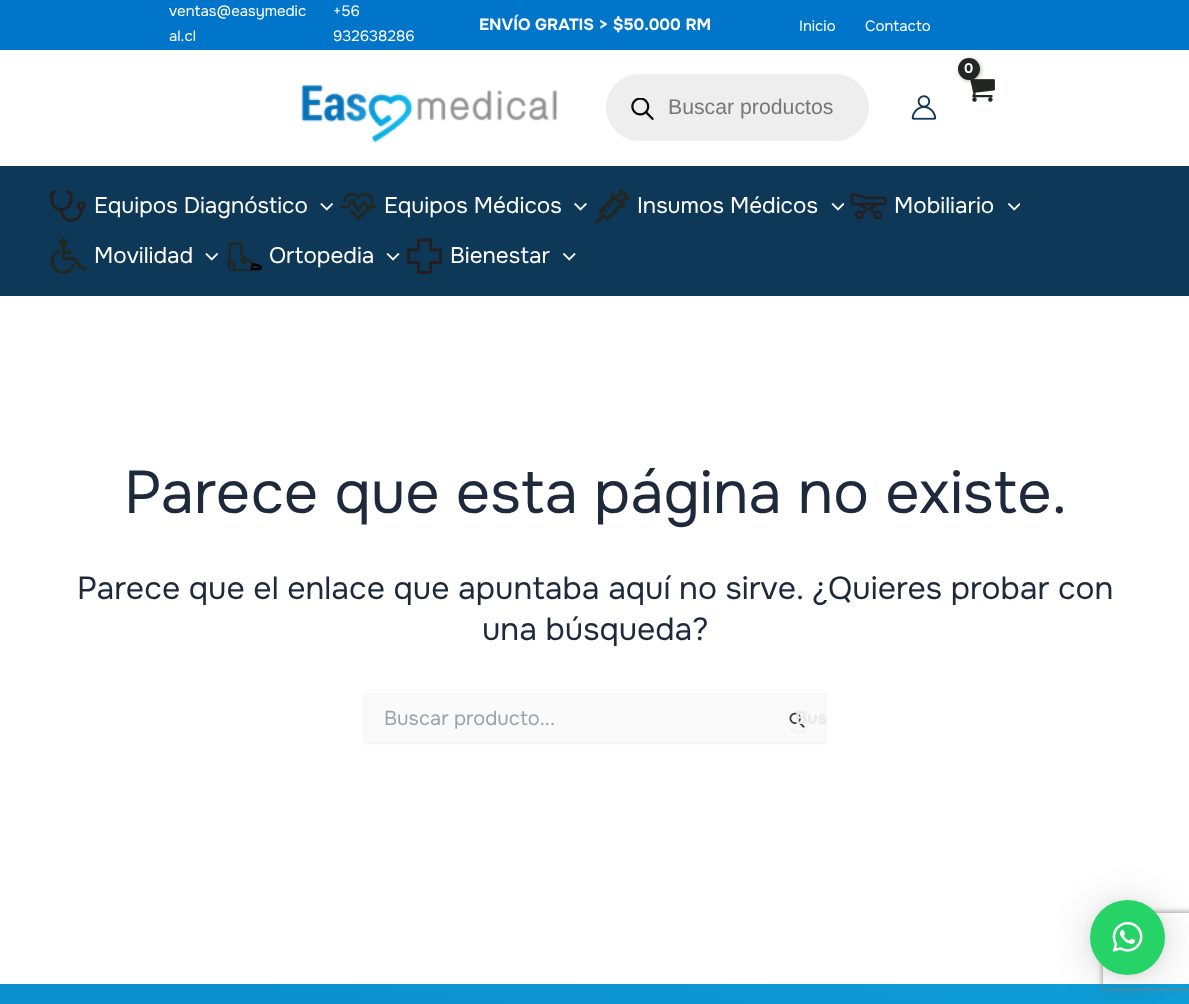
<svg xmlns="http://www.w3.org/2000/svg" width="1189" height="1004" viewBox="0 0 1189 1004">
  <style>
    .t1 { font: 15px Onest; fill: #fff; }
    .t2 { font: bold 16.25px Onest; fill: #fff; }
    .t3 { font: bold 14px Onest; letter-spacing: -1px; fill: #fff; }
    .t4 { font: 21.25px Liberation Sans; fill: #777; }
    .t5 { font: 22.5px Onest; fill: #fff; }
    .t6 { font: 60px Onest; fill: #1e293b; }
    .t7 { font: 31.9px Onest; fill: #1e293b; }
    .t8 { font: 20px Onest; fill: #9ca3af; }
    .t9 { font: bold 18px Onest; fill: #e9e9ea; }
  </style>
  <defs>
    <clipPath id="clip1"><path d="M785 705H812V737H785ZM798.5 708C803.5 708 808 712.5 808 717.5V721.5C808 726.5 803.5 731 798.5 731C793.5 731 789 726.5 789 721.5V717.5C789 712.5 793.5 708 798.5 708Z" clip-rule="evenodd"/></clipPath>
    <radialGradient id="g1" gradientUnits="userSpaceOnUse" cx="0" cy="0" r="1" gradientTransform="matrix(1683 0 0 640 0 1436)"><stop offset="0" stop-color="#0872b9"/><stop offset="1" stop-color="#0e9ed7"/></radialGradient>
    <clipPath id="clip2"><path d="M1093 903H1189V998H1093ZM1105.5 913H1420.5C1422 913 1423 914 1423 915.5V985.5C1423 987 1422 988 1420.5 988H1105.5C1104 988 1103 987 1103 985.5V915.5C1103 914 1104 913 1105.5 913Z" clip-rule="evenodd"/></clipPath>
  </defs>
  <rect width="100%" height="100%" fill="#fff"/>
  <rect x="0" y="0" width="1189" height="50" fill="#0075c9"/>
  <text x="169" y="16" class="t1">ventas@easymedic</text>
  <text x="169" y="41" class="t1">al.cl</text>
  <text x="333" y="16" class="t1">+56</text>
  <text x="333" y="41" class="t1">932638286</text>
  <text x="479" y="30" class="t2">ENVÍO GRATIS &gt; $50.000 RM</text>
  <text x="799" y="31" class="t1">Inicio</text>
  <text x="865" y="31" class="t1">Contacto</text>
  <image x="301" y="84" width="257" height="59" href="images/1.png"/>
  <image x="966" y="79" width="29" height="23" href="images/2.png"/>
  <rect x="959" y="59" width="22" height="22" rx="11" fill="#0000004d" filter="blur(2px)"/>
  <circle cx="969" cy="69" r="11" fill="#212721"/>
  <text x="964" y="73" class="t3">0</text>
  <rect x="606" y="74" width="263" height="67" rx="33.5" fill="#eee"/>
  <image x="631" y="98" width="23" height="22" href="images/3.png"/>
  <text x="668" y="114" class="t4">Buscar productos</text>
  <image x="911" y="95" width="26" height="25" href="images/4.png"/>
  <rect x="0" y="166" width="1189" height="130" fill="#0e3857"/>
  <image x="50" y="190" width="36" height="32" href="images/5.png"/>
  <text x="94" y="213" class="t5">Equipos Diagnóstico</text>
  <image x="320" y="203" width="14" height="8" href="images/6.png"/>
  <path d="M341.5 207H348L352.5 200L358 210.5L364 202L368 207H375M344.5 202C343.5 195.5 351.5 190.5 358 197C367 188.5 377.5 199 369 208L358 218.5L351 211" fill="none" stroke="#212721" stroke-width="2.7" stroke-linecap="round" stroke-linejoin="round"/>
  <text x="384" y="213" class="t5">Equipos Médicos</text>
  <image x="574" y="203" width="13" height="8" href="images/7.png"/>
  <image x="595" y="188" width="36" height="36" href="images/8.png"/>
  <text x="637" y="213" class="t5">Insumos Médicos</text>
  <image x="831" y="203" width="13" height="8" href="images/9.png"/>
  <image x="850" y="193" width="37" height="27" href="images/10.png"/>
  <text x="894" y="213" class="t5">Mobiliario</text>
  <image x="1008" y="203" width="12" height="8" href="images/11.png"/>
  <image x="50" y="238" width="38" height="36" href="images/12.png"/>
  <text x="94" y="263" class="t5">Movilidad</text>
  <image x="205" y="253" width="14" height="8" href="images/6.png"/>
  <image x="227" y="242" width="35" height="29" href="images/13.png"/>
  <text x="269" y="263" class="t5">Ortopedia</text>
  <image x="386" y="253" width="14" height="8" href="images/14.png"/>
  <path d="M440.5 262.5H430.5V272.5H418.5V262.5H408.5V250H418.5V240H430.5V250H440.5Z" fill="none" stroke="#231f20" stroke-width="2.8" stroke-linecap="round" stroke-linejoin="round"/>
  <text x="450" y="263" class="t5">Bienestar</text>
  <image x="563" y="253" width="13" height="8" href="images/15.png"/>
  <text x="124" y="513" class="t6">Parece que esta página no existe.</text>
  <text x="77" y="599" class="t7">Parece que el enlace que apuntaba aquí no sirve. ¿Quieres probar con</text>
  <text x="482" y="640" class="t7">una búsqueda?</text>
  <rect x="364" y="694" width="462" height="50" rx="2.5" fill="#0000000d" filter="blur(1px)"/>
  <rect x="364.5" y="693.5" width="461" height="49" rx="2" fill="#fafafa" stroke="#f2f5f7"/>
  <text x="384" y="725" class="t8">Buscar producto...</text>
  <g clip-path="url(#clip1)">
    <rect x="789" y="709" width="19" height="24" rx="9.5" fill="#0000000d" filter="blur(1px)"/>
  </g>
  <image x="789" y="712" width="16" height="16" href="images/16.png"/>
  <text x="795" y="724" class="t9">Bus</text>
  <rect x="0" y="984" width="1189" height="20" fill="url(#g1)"/>
  <rect x="1090" y="903" width="75" height="75" rx="37.5" fill="#00000029" filter="blur(20px)"/>
  <rect x="1090" y="901" width="75" height="75" rx="37.5" fill="#0000000f" filter="blur(4px)"/>
  <g clip-path="url(#clip2)">
    <rect x="1103" y="913" width="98" height="75" rx="2.5" fill="#808080" filter="blur(3px)"/>
  </g>
  <circle cx="1127.5" cy="937.5" r="37.5" fill="#25d366"/>
  <image x="1112" y="921" width="31" height="31" href="images/17.png"/>
</svg>
